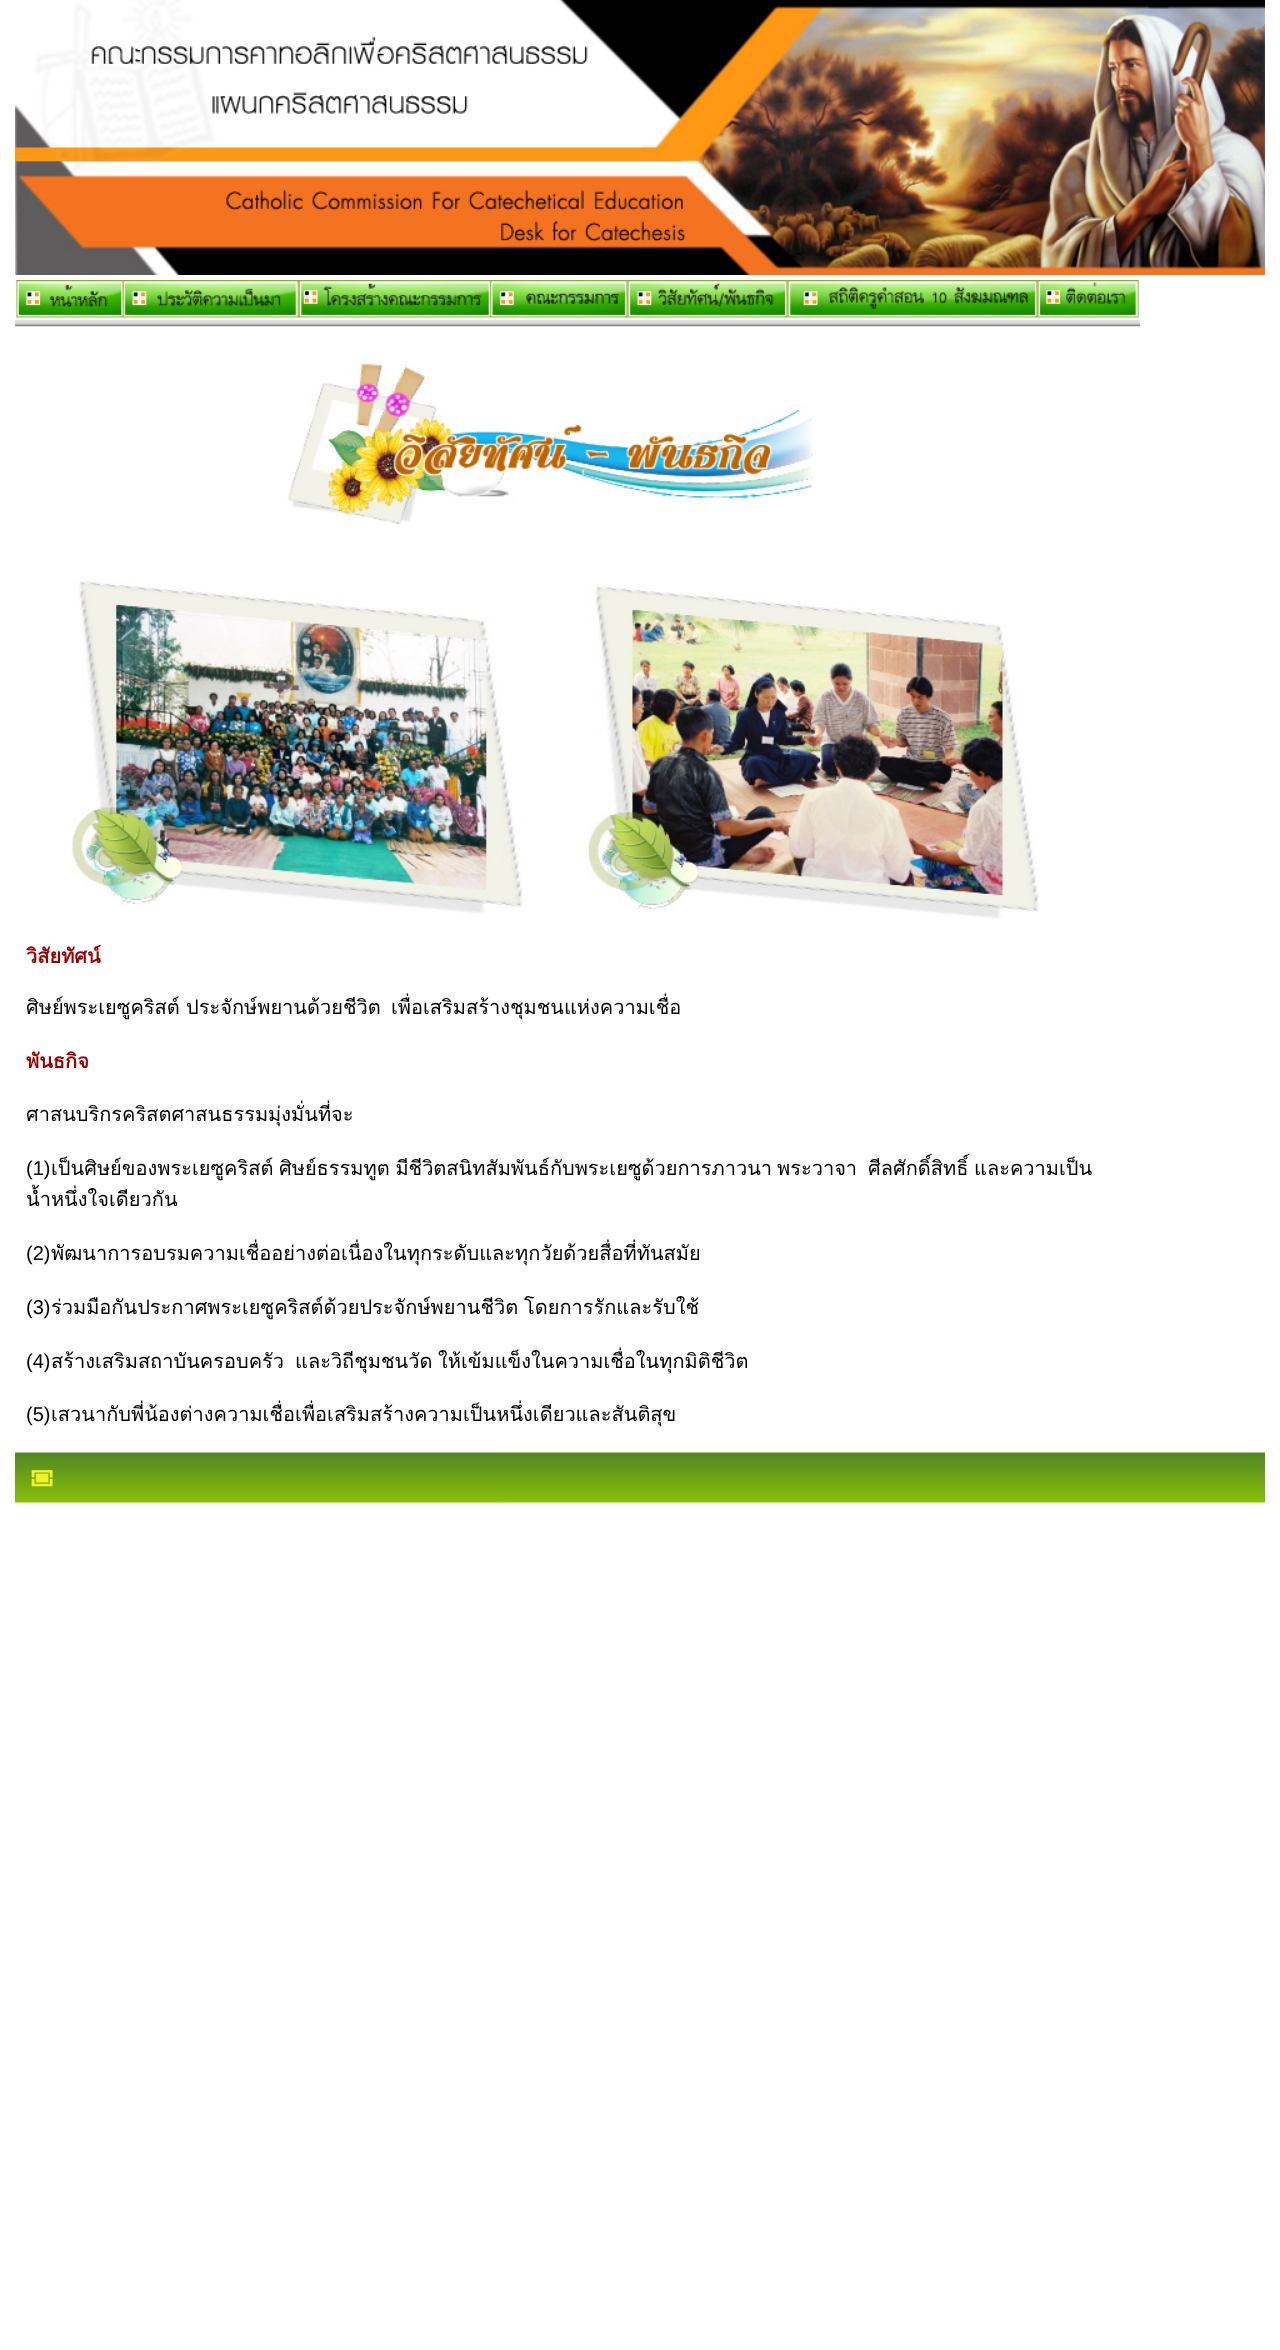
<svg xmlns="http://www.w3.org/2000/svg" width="1280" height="2350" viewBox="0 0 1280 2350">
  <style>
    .t1 { font: bold 20px Loma; fill: #900; }
    .t2 { font: 20px Loma; fill: #000; }
    .t3 { font: 20px Liberation Sans; fill: #000; }
  </style>
  <rect width="100%" height="100%" fill="#fff"/>
  <image x="15" y="0" width="1250" height="275" href="images/1.png"/>
  <image x="15" y="280" width="1125" height="47" href="images/2.png"/>
  <image x="287" y="363" width="526" height="161" href="images/3.png"/>
  <image x="71" y="578" width="452" height="336" href="images/4.png"/>
  <image x="588" y="583" width="451" height="336" href="images/5.png"/>
  <text x="26" y="963" class="t1">วิสัยทัศน์</text>
  <text x="26" y="1014" class="t2">ศิษย์พระเยซูคริสต์</text>
  <text x="186" y="1014" class="t2">ประจักษ์พยานด้วยชีวิต</text>
  <text x="391" y="1014" class="t2">เพื่อเสริมสร้างชุมชนแห่งความเชื่อ</text>
  <text x="26" y="1068" class="t1">พันธกิจ</text>
  <text x="26" y="1121" class="t2">ศาสนบริกรคริสตศาสนธรรมมุ่งมั่นที่จะ</text>
  <text x="26" y="1175" class="t3">(1)</text>
  <text x="51" y="1175" class="t2">เป็นศิษย์ของพระเยซูคริสต์</text>
  <text x="279" y="1175" word-spacing="-1" class="t2">ศิษย์ธรรมทูต มีชีวิตสนิทสัมพันธ์กับพระเยซูด้วยการภาวนา</text>
  <text x="777" y="1175" class="t2">พระวาจา</text>
  <text x="868" y="1175" class="t2">ศีลศักดิ์สิทธิ์</text>
  <text x="974" y="1175" class="t2">และความเป็น</text>
  <text x="26" y="1206" class="t2">น้ำหนึ่งใจเดียวกัน</text>
  <text x="26" y="1260" class="t3">(2)</text>
  <text x="51" y="1260" class="t2">พัฒนาการอบรมความเชื่ออย่างต่อเนื่องในทุกระดับและทุกวัยด้วยสื่อที่ทันสมัย</text>
  <text x="26" y="1314" class="t3">(3)</text>
  <text x="51" y="1314" word-spacing="-1" class="t2">ร่วมมือกันประกาศพระเยซูคริสต์ด้วยประจักษ์พยานชีวิต โดยการรักและรับใช้</text>
  <text x="26" y="1368" class="t3">(4)</text>
  <text x="51" y="1368" class="t2">สร้างเสริมสถาบันครอบครัว</text>
  <text x="295" y="1368" class="t2">และวิถีชุมชนวัด</text>
  <text x="438" y="1368" class="t2">ให้เข้มแข็งในความเชื่อในทุกมิติชีวิต</text>
  <text x="26" y="1421" class="t3">(5)</text>
  <text x="51" y="1421" class="t2">เสวนากับพี่น้องต่างความเชื่อเพื่อเสริมสร้างความเป็นหนึ่งเดียวและสันติสุข</text>
  <image x="15" y="1452" width="1250" height="51" href="images/6.png"/>
</svg>
